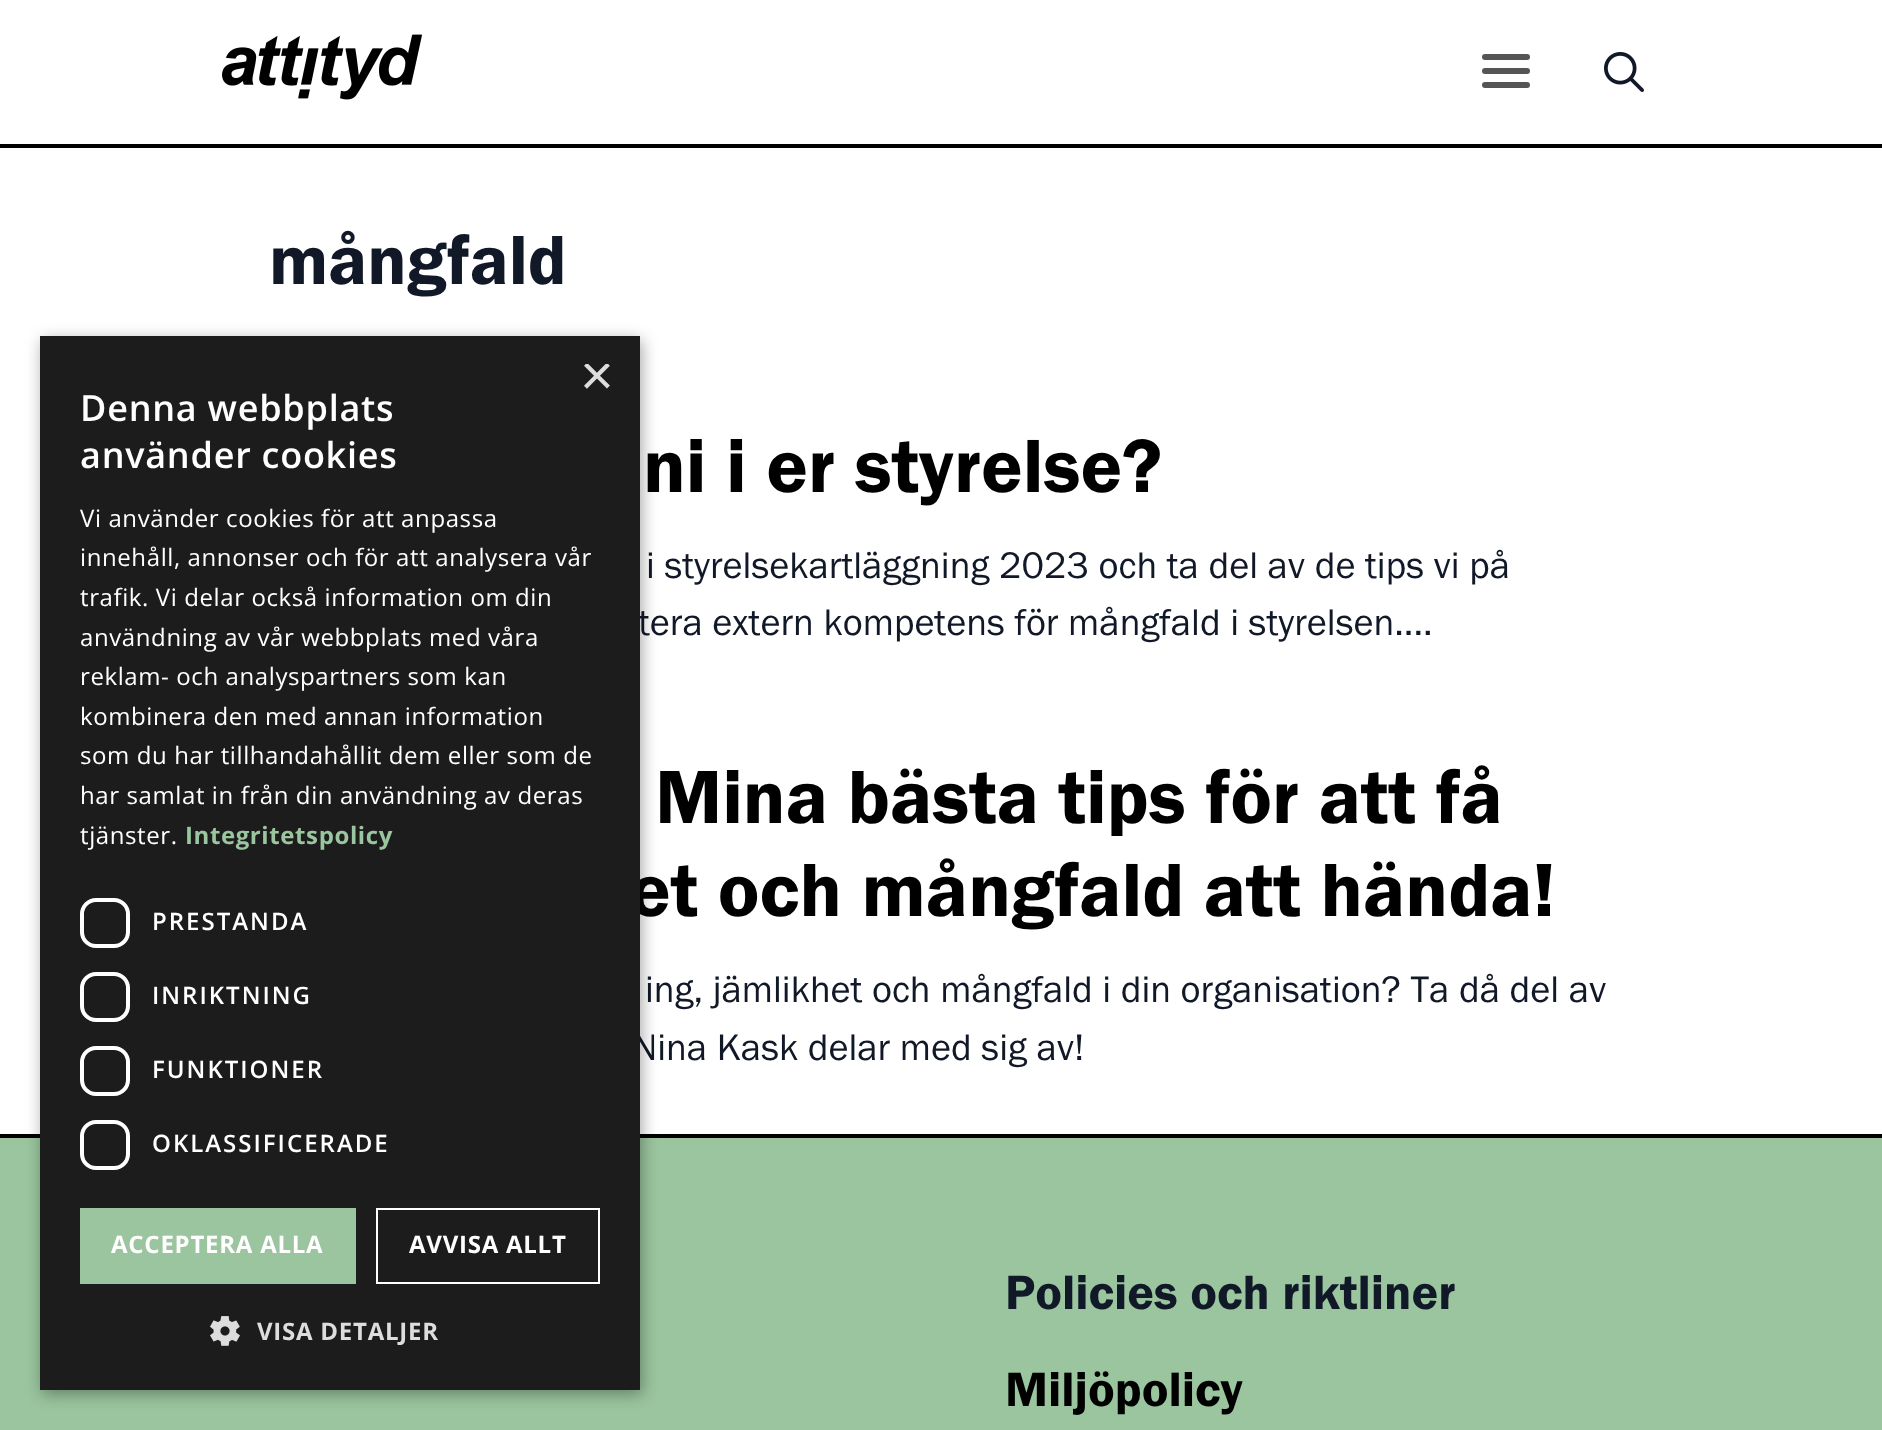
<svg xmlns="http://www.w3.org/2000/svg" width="1882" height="1430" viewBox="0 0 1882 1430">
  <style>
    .t1 { font: 72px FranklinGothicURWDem; fill: #111827; }
    .t2 { font: 78.1px FranklinGothicURWDem; fill: #000; }
    .t3 { font: 38.4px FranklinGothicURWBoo; fill: #111827; }
    .t4 { font: 50px FranklinGothicURWDem; fill: #111827; }
    .t5 { font: 50px FranklinGothicURWDem; fill: #000; }
    .t6 { font: 58px Liberation Sans; fill: #ddd; }
    .t7 { font: 600 36px Open Sans; letter-spacing: 0.75px; fill: #fff; }
    .t8 { font: 24px Open Sans; letter-spacing: 0.6px; fill: #fff; }
    .t9 { font: bold 24px Open Sans; letter-spacing: 0.6px; fill: #9ac59e; }
    .t10 { font: 600 24px Open Sans; letter-spacing: 2px; fill: #fff; }
    .t11 { font: bold 24px Open Sans; letter-spacing: 0.75px; fill: #fff; }
    .t12 { font: bold 24px Open Sans; letter-spacing: 0.75px; fill: #ddd; }
  </style>
  <defs>
    <clipPath id="clip1"><rect x="580" y="364" width="30" height="30"/></clipPath>
  </defs>
  <rect width="100%" height="100%" fill="#fff"/>
  <rect x="0" y="144" width="1882" height="4" fill="#000"/>
  <image x="222" y="34" width="200" height="66" href="images/1.png"/>
  <rect x="1482" y="54" width="48" height="6" rx="3" fill="#555"/>
  <rect x="1482" y="68" width="48" height="6" rx="3" fill="#555"/>
  <rect x="1482" y="82" width="48" height="6" rx="3" fill="#555"/>
  <image x="1604" y="52" width="40" height="40" href="images/2.png"/>
  <text x="269" y="284" class="t1">mångfald</text>
  <text x="643" y="492" class="t2">ni i er styrelse?</text>
  <text x="646" y="578" class="t3">i styrelsekartläggning 2023 och ta del av de tips vi på</text>
  <text x="638" y="635" class="t3">tera extern kompetens för mångfald i styrelsen....</text>
  <text x="655" y="823" class="t2">Mina bästa tips för att få</text>
  <text x="629" y="916" class="t2">et och mångfald att hända!</text>
  <text x="645" y="1002" class="t3">ing, jämlikhet och mångfald i din organisation? Ta då del av</text>
  <text x="632" y="1060" class="t3">Nina Kask delar med sig av!</text>
  <rect x="0" y="1138" width="1882" height="292" fill="#9ac59e"/>
  <rect x="0" y="1134" width="1882" height="4" fill="#000"/>
  <text x="1005" y="1309" class="t4">Policies och riktliner</text>
  <text x="1005" y="1406" class="t5">Miljöpolicy</text>
  <rect x="42" y="340" width="600" height="1054" fill="#00000059" filter="blur(8px)"/>
  <rect x="40" y="336" width="600" height="1054" fill="#1c1c1c"/>
  <g clip-path="url(#clip1)">
    <text x="580" y="395" class="t6">×</text>
  </g>
  <text x="80" y="421" class="t7">Denna webbplats</text>
  <text x="80" y="468" class="t7">använder cookies</text>
  <text x="80" y="527" class="t8">Vi använder cookies för att anpassa</text>
  <text x="80" y="566" class="t8">innehåll, annonser och för att analysera vår</text>
  <text x="80" y="606" class="t8">trafik. Vi delar också information om din</text>
  <text x="80" y="646" class="t8">användning av vår webbplats med våra</text>
  <text x="80" y="685" class="t8">reklam- och analyspartners som kan</text>
  <text x="80" y="725" class="t8">kombinera den med annan information</text>
  <text x="80" y="764" class="t8">som du har tillhandahållit dem eller som de</text>
  <text x="80" y="804" class="t8">har samlat in från din användning av deras</text>
  <text x="80" y="844" class="t8">tjänster.</text>
  <text x="185" y="844" class="t9">Integritetspolicy</text>
  <rect x="82" y="900" width="46" height="46" rx="14" fill="none" stroke="#fff" stroke-width="4"/>
  <text x="152" y="930" class="t10">PRESTANDA</text>
  <rect x="82" y="974" width="46" height="46" rx="14" fill="none" stroke="#fff" stroke-width="4"/>
  <text x="152" y="1004" class="t10">INRIKTNING</text>
  <rect x="82" y="1048" width="46" height="46" rx="14" fill="none" stroke="#fff" stroke-width="4"/>
  <text x="152" y="1078" class="t10">FUNKTIONER</text>
  <rect x="82" y="1122" width="46" height="46" rx="14" fill="none" stroke="#fff" stroke-width="4"/>
  <text x="152" y="1152" class="t10">OKLASSIFICERADE</text>
  <rect x="80" y="1208" width="276" height="76" fill="#9ac59e"/>
  <text x="111" y="1253" class="t11">ACCEPTERA ALLA</text>
  <rect x="377" y="1209" width="222" height="74" fill="none" stroke="#fff" stroke-width="2"/>
  <text x="409" y="1253" class="t11">AVVISA ALLT</text>
  <image x="210" y="1316" width="30" height="30" href="images/3.png"/>
  <text x="257" y="1340" class="t12">VISA DETALJER</text>
</svg>
